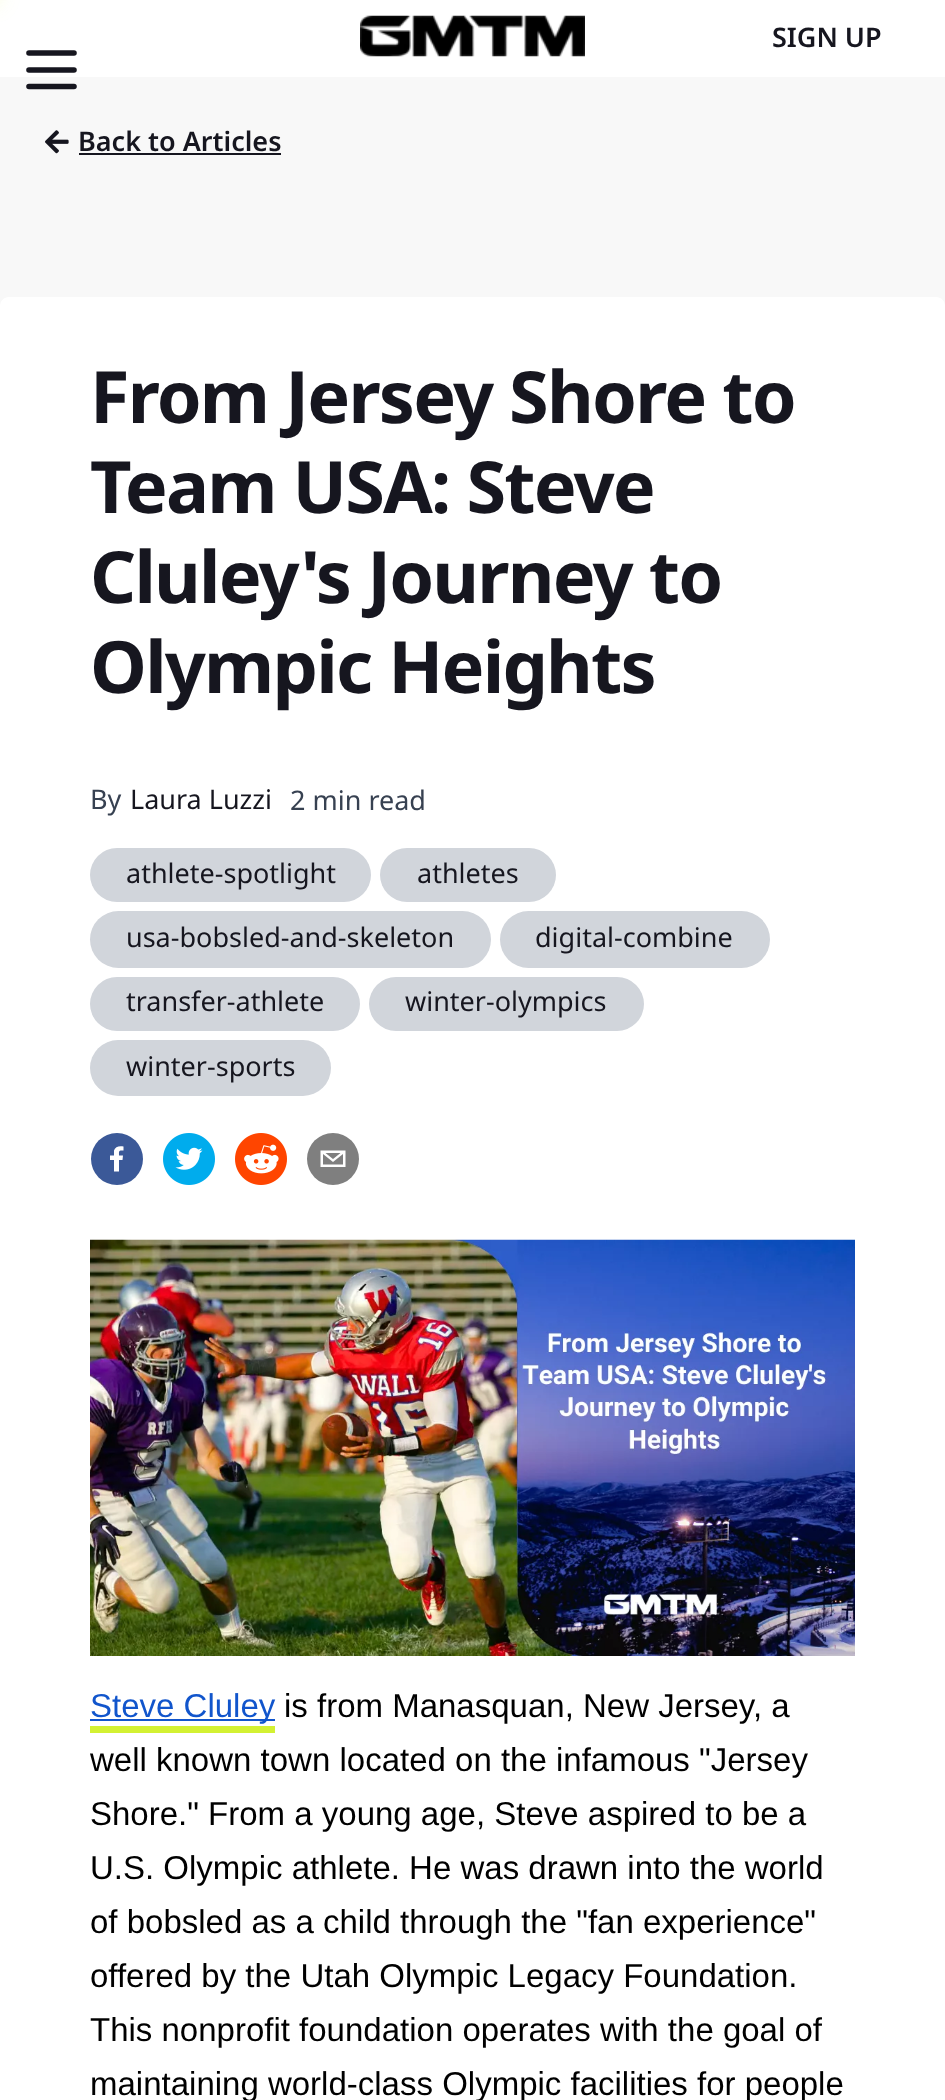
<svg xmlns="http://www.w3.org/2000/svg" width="945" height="2100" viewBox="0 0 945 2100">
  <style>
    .t1 { font: 600 27px Noto Sans; fill: #16161f; }
    .t2 { font: bold 72px Noto Sans; letter-spacing: -1.8px; fill: #16161f; }
    .t3 { font: 27px Noto Sans; fill: #374151; }
    .t4 { font: 27px Noto Sans; fill: #16161f; }
    .t5 { font: 33px Liberation Sans; fill: #15c; }
    .t6 { font: 33px Liberation Sans; fill: #000; }
  </style>
  <rect width="100%" height="100%" fill="#f8f8f8"/>
  <rect x="0" y="0" width="945" height="77" fill="#fff"/>
  <rect x="-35" y="-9" width="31" height="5" fill="#d3f132" filter="blur(11.5px)"/>
  <image x="360" y="15" width="225" height="42" href="images/1.png"/>
  <text x="772" y="47" class="t1">SIGN UP</text>
  <path d="M29 53H74M29 70H74M29 86.5H74" fill="none" stroke="#16161f" stroke-width="5.6" stroke-linecap="round" stroke-linejoin="round"/>
  <image x="45" y="130" width="24" height="24" href="images/2.png"/>
  <text x="78" y="151" class="t1">Back to Articles</text>
  <rect x="79" y="153" width="202" height="2" fill="#16161f"/>
  <path d="M9 297H936C941 297 945 301 945 306V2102H0V306C0 301 4 297 9 297Z" fill="#fff"/>
  <text x="90" y="423" class="t2">From Jersey Shore to</text>
  <text x="90" y="513" class="t2">Team USA: Steve</text>
  <text x="90" y="603" class="t2">Cluley's Journey to</text>
  <text x="90" y="693" class="t2">Olympic Heights</text>
  <text x="90" y="809" class="t3">By</text>
  <text x="130" y="809" class="t4">Laura Luzzi</text>
  <text x="290" y="810" class="t3">2 min read</text>
  <rect x="90" y="848" width="281" height="54" rx="27" fill="#d1d5db"/>
  <text x="126" y="883" class="t4">athlete-spotlight</text>
  <rect x="380" y="848" width="176" height="54" rx="27" fill="#d1d5db"/>
  <text x="417" y="883" class="t4">athletes</text>
  <rect x="90" y="911" width="401" height="57" rx="28.5" fill="#d1d5db"/>
  <text x="126" y="947" class="t4">usa-bobsled-and-skeleton</text>
  <rect x="500" y="911" width="270" height="57" rx="28.5" fill="#d1d5db"/>
  <text x="535" y="947" class="t4">digital-combine</text>
  <rect x="90" y="977" width="270" height="54" rx="27" fill="#d1d5db"/>
  <text x="126" y="1011" class="t4">transfer-athlete</text>
  <rect x="369" y="977" width="275" height="54" rx="27" fill="#d1d5db"/>
  <text x="405" y="1011" class="t4">winter-olympics</text>
  <rect x="90" y="1040" width="241" height="56" rx="28" fill="#d1d5db"/>
  <text x="126" y="1076" class="t4">winter-sports</text>
  <circle cx="117" cy="1159" r="26" fill="#3b5998"/>
  <path d="M119 1171.5V1160H122.5L123 1155.5H119C119 1150.5 118.5 1150.5 123.5 1150.5V1146.5C119.5 1145.5 115 1146.5 114 1150.5V1155.5H110V1160H114V1171.5Z" fill="#fff"/>
  <image x="163" y="1133" width="52" height="52" href="images/3.png"/>
  <image x="235" y="1133" width="52" height="52" href="images/4.png"/>
  <circle cx="333" cy="1159" r="26" fill="#7f7f7f"/>
  <path d="M320.5 1150.5V1167H345.5V1150.5ZM340.5 1153L333 1159L325.5 1153ZM323 1164.5V1154L333 1162L343 1154V1164.5Z" fill="#fff"/>
  <image x="90" y="1239" width="765" height="417" href="images/5.png"/>
  <rect x="90" y="1719" width="185" height="2" fill="#15c"/>
  <text x="90" y="1717" class="t5">Steve Cluley</text>
  <rect x="90" y="1726" width="185" height="7" fill="#d3f132"/>
  <text x="284" y="1717" class="t6">is from Manasquan, New Jersey, a</text>
  <text x="90" y="1771" class="t6">well known town located on the infamous "Jersey</text>
  <text x="90" y="1825" class="t6">Shore." From a young age, Steve aspired to be a</text>
  <text x="90" y="1879" class="t6">U.S. Olympic athlete. He was drawn into the world</text>
  <text x="90" y="1933" class="t6">of bobsled as a child through the "fan experience"</text>
  <text x="90" y="1987" class="t6">offered by the Utah Olympic Legacy Foundation.</text>
  <text x="90" y="2041" class="t6">This nonprofit foundation operates with the goal of</text>
  <text x="90" y="2095" class="t6">maintaining world-class Olympic facilities for people</text>
</svg>
